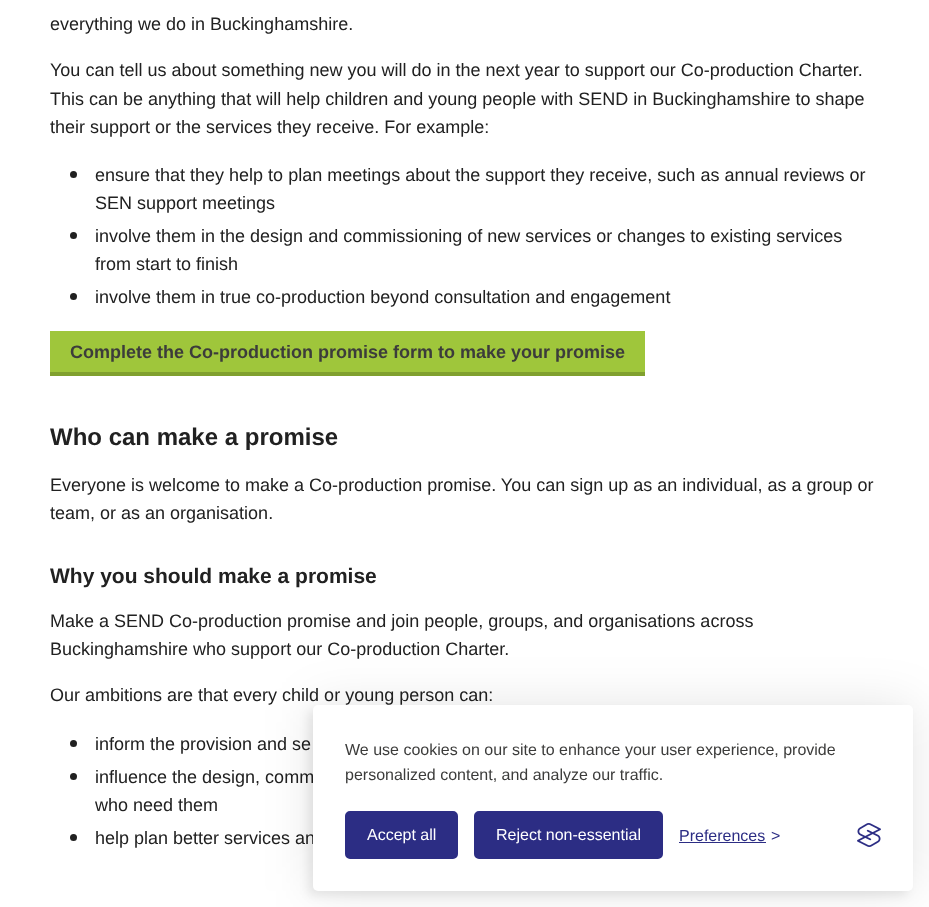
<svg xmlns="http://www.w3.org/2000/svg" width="929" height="907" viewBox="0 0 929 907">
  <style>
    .t1 { font: 18px Liberation Sans; fill: #212121; }
    .t2 { font: bold 18px Liberation Sans; fill: #3c3c3b; }
    .t3 { font: bold 24px Liberation Sans; fill: #212121; }
    .t4 { font: bold 21px Liberation Sans; fill: #212121; }
    .t5 { font: 16px Liberation Sans; fill: #3c3c3b; }
    .t6 { font: 16px Liberation Sans; fill: #fff; }
    .t7 { font: 16px Liberation Sans; fill: #2c2d84; }
  </style>
  <rect width="100%" height="100%" fill="#fff"/>
  <text x="50" y="30" class="t1">everything we do in Buckinghamshire.</text>
  <text x="50" y="76" class="t1">You can tell us about something new you will do in the next year to support our Co-production Charter.</text>
  <text x="50" y="105" class="t1">This can be anything that will help children and young people with SEND in Buckinghamshire to shape</text>
  <text x="50" y="133" class="t1">their support or the services they receive. For example:</text>
  <circle cx="73.5" cy="174.5" r="3.5" fill="#212121"/>
  <text x="95" y="181" class="t1">ensure that they help to plan meetings about the support they receive, such as annual reviews or</text>
  <text x="95" y="209" class="t1">SEN support meetings</text>
  <circle cx="73.5" cy="235.5" r="3.5" fill="#212121"/>
  <text x="95" y="242" class="t1">involve them in the design and commissioning of new services or changes to existing services</text>
  <text x="95" y="270" class="t1">from start to finish</text>
  <circle cx="73.5" cy="296.5" r="3.5" fill="#212121"/>
  <text x="95" y="303" class="t1">involve them in true co-production beyond consultation and engagement</text>
  <rect x="50" y="331" width="595" height="41" fill="#9fc63b"/>
  <rect x="50" y="372" width="595" height="4" fill="#80a02e"/>
  <text x="70" y="358" class="t2">Complete the Co-production promise form to make your promise</text>
  <text x="50" y="445" class="t3">Who can make a promise</text>
  <text x="50" y="491" class="t1">Everyone is welcome to make a Co-production promise. You can sign up as an individual, as a group or</text>
  <text x="50" y="519" class="t1">team, or as an organisation.</text>
  <text x="50" y="583" class="t4">Why you should make a promise</text>
  <text x="50" y="627" class="t1">Make a SEND Co-production promise and join people, groups, and organisations across</text>
  <text x="50" y="655" class="t1">Buckinghamshire who support our Co-production Charter.</text>
  <text x="50" y="701" class="t1">Our ambitions are that every child or young person can:</text>
  <circle cx="73.5" cy="743.5" r="3.5" fill="#212121"/>
  <text x="95" y="750" class="t1">inform the provision and se</text>
  <circle cx="73.5" cy="776.5" r="3.5" fill="#212121"/>
  <text x="95" y="783" class="t1">influence the design, comm</text>
  <text x="95" y="811" class="t1">who need them</text>
  <circle cx="73.5" cy="837.5" r="3.5" fill="#212121"/>
  <text x="95" y="844" class="t1">help plan better services an</text>
  <rect x="313" y="705" width="600" height="186" rx="5" fill="#0000001a" filter="blur(25px)"/>
  <rect x="308" y="710" width="600" height="186" rx="5" fill="#00000012" filter="blur(5px)"/>
  <rect x="313" y="705" width="600" height="186" rx="5" fill="#fff"/>
  <text x="345" y="755" class="t5">We use cookies on our site to enhance your user experience, provide</text>
  <text x="345" y="780" class="t5">personalized content, and analyze our traffic.</text>
  <rect x="346" y="812" width="111" height="46" rx="4" fill="#2c2d84" stroke="#2c2d84" stroke-width="2"/>
  <text x="367" y="840" class="t6">Accept all</text>
  <rect x="475" y="812" width="187" height="46" rx="4" fill="#2c2d84" stroke="#2c2d84" stroke-width="2"/>
  <text x="496" y="840" class="t6">Reject non-essential</text>
  <text x="679" y="841" class="t7">Preferences</text>
  <rect x="679" y="842" width="87" height="1" fill="#2c2d84"/>
  <text x="771" y="841" class="t7">&gt;</text>
  <image x="857" y="823" width="24" height="24" href="images/1.png"/>
</svg>
